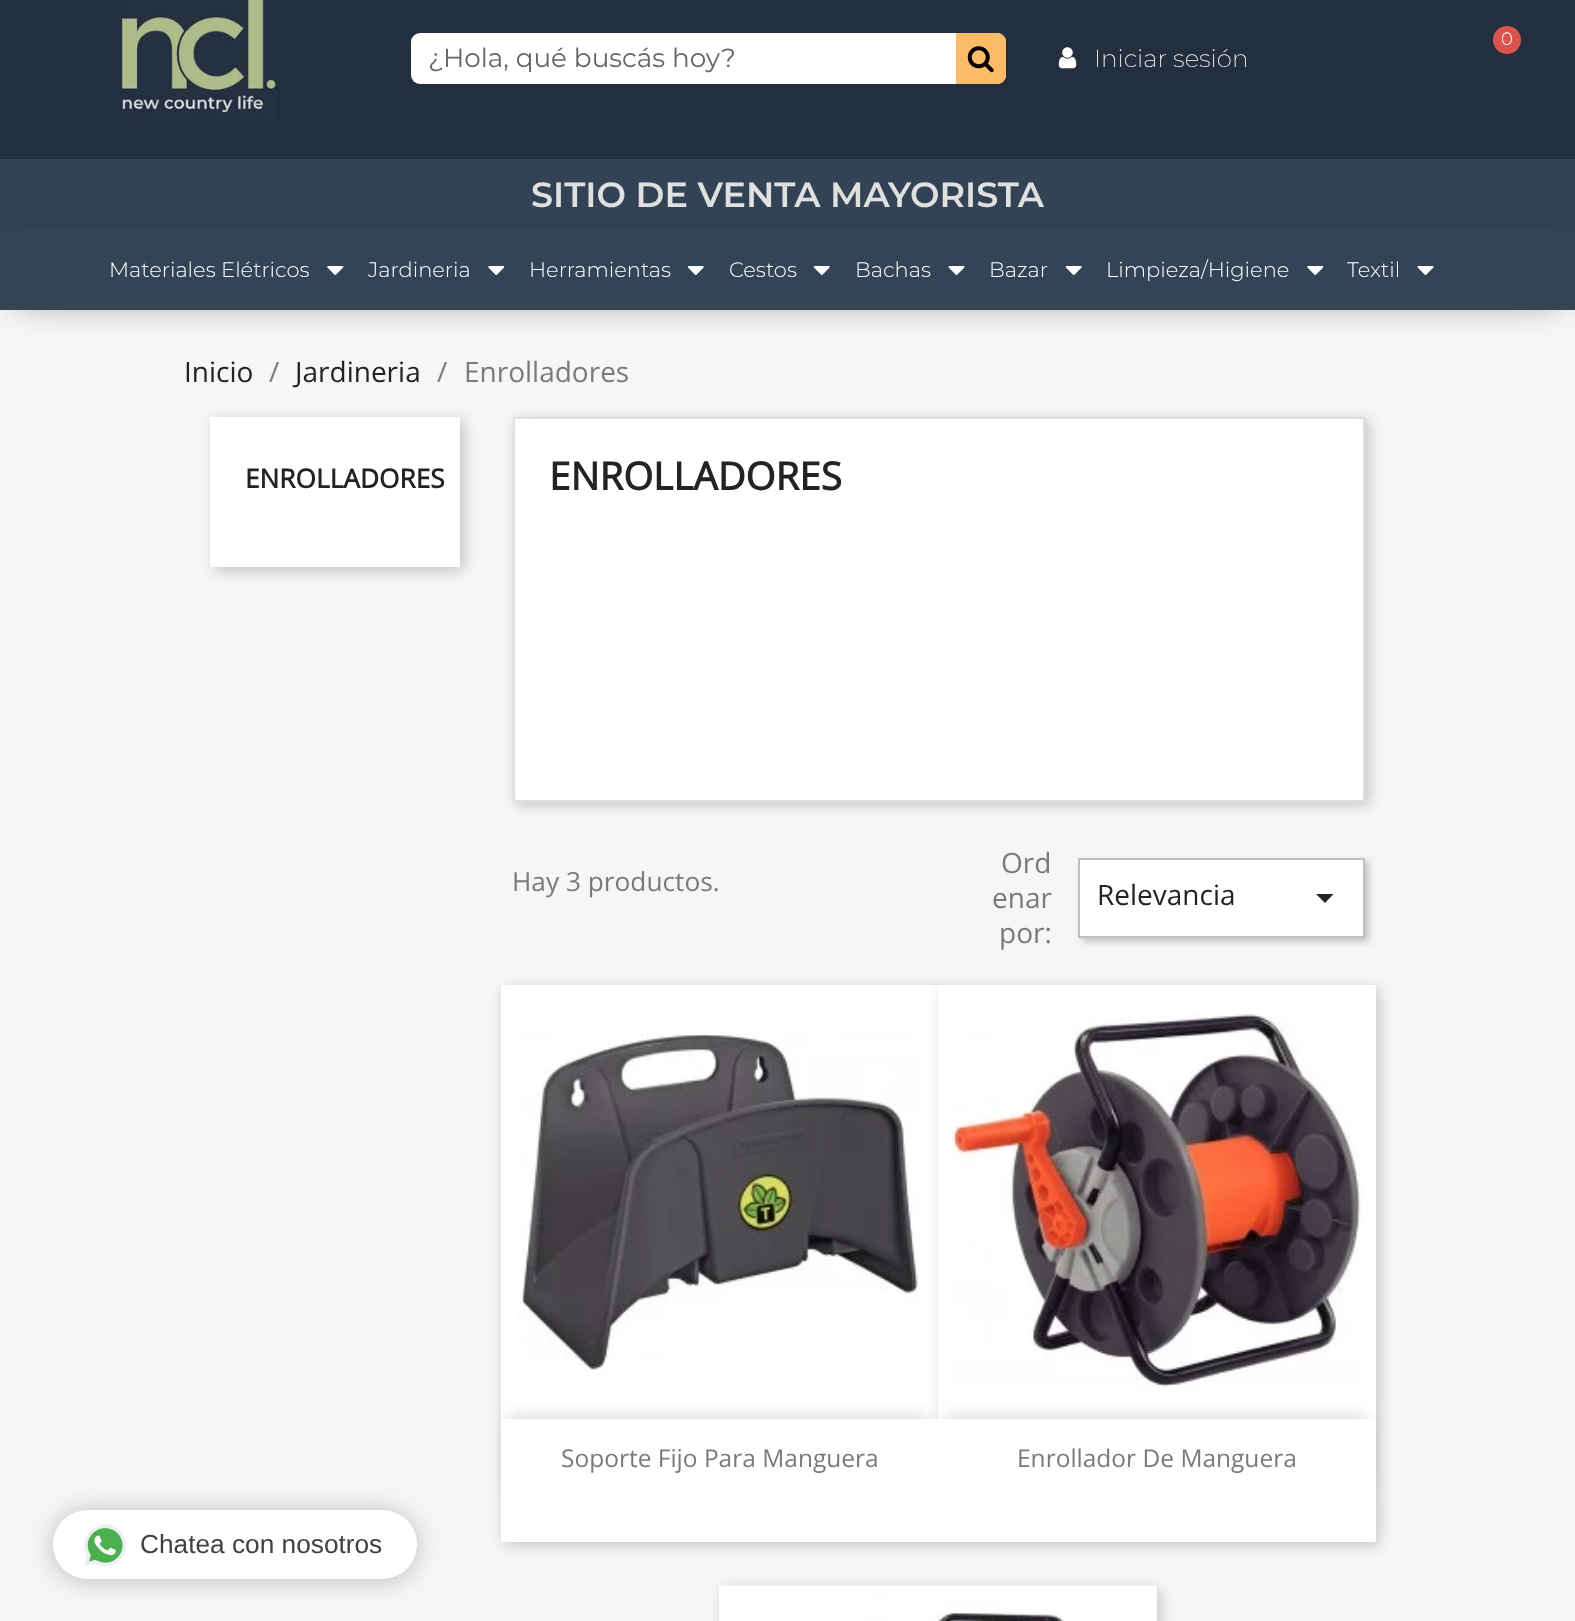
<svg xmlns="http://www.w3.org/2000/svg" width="1575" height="1621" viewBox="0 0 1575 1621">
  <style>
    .t1 { font: 300 18px Montserrat; fill: #fff; }
    .t2 { font: 26.25px Montserrat; fill: #666; }
    .t3 { font: 200 24.5px Montserrat; fill: #fff; }
    .t4 { font: 600 35px Montserrat; fill: #e0e0e0; }
    .t5 { font: 300 21px Montserrat; fill: #fff; }
    .t6 { font: 28px Open Sans; fill: #232323; }
    .t7 { font: 28px Open Sans; fill: #7a7a7a; }
    .t8 { font: bold 26.25px Open Sans; fill: #232323; }
    .t9 { font: bold 38.5px Open Sans; fill: #232323; }
    .t10 { font: 26.25px Open Sans; fill: #7a7a7a; }
    .t11 { font: 24.5px Open Sans; fill: #7a7a7a; }
    .t12 { font: 26.25px Liberation Sans; fill: #404040; }
  </style>
  <rect width="100%" height="100%" fill="#f6f6f6"/>
  <rect x="0" y="0" width="1575" height="158" fill="#232f3f"/>
  <rect x="0" y="158" width="1575" height="1" fill="#212d3c"/>
  <image x="121" y="0" width="156" height="120" href="images/1.png"/>
  <circle cx="1507" cy="40" r="14" fill="#d9534f"/>
  <text x="1501" y="45" class="t1">0</text>
  <rect x="411" y="33" width="595" height="51" rx="9" fill="#fff"/>
  <text x="428" y="67" class="t2">¿Hola, qué buscás hoy?</text>
  <path d="M956 33H997C1002 33 1006 37 1006 42V75C1006 80 1002 84 997 84H956Z" fill="#fcbb67"/>
  <image x="967" y="46" width="27" height="27" href="images/2.png"/>
  <image x="1058" y="47" width="19" height="22" href="images/3.png"/>
  <text x="1094" y="67" class="t3">Iniciar sesión</text>
  <rect x="0" y="159" width="1575" height="70" fill="#324355"/>
  <text x="531" y="207" class="t4">SITIO DE VENTA MAYORISTA</text>
  <rect x="18" y="254" width="1540" height="45" fill="#00000087" filter="blur(17.5px)"/>
  <rect x="0" y="229" width="1575" height="81" fill="#334456"/>
  <text x="109" y="277" class="t5">Materiales Elétricos</text>
  <image x="327" y="266" width="17" height="9" href="images/4.png"/>
  <text x="368" y="277" class="t5">Jardineria</text>
  <image x="488" y="266" width="17" height="9" href="images/4.png"/>
  <text x="529" y="277" class="t5">Herramientas</text>
  <image x="687" y="266" width="17" height="9" href="images/5.png"/>
  <text x="729" y="277" class="t5">Cestos</text>
  <image x="813" y="266" width="17" height="9" href="images/5.png"/>
  <text x="855" y="277" class="t5">Bachas</text>
  <image x="948" y="266" width="17" height="9" href="images/6.png"/>
  <text x="989" y="277" class="t5">Bazar</text>
  <image x="1065" y="266" width="17" height="9" href="images/5.png"/>
  <text x="1106" y="277" class="t5">Limpieza/Higiene</text>
  <image x="1307" y="266" width="17" height="9" href="images/4.png"/>
  <text x="1347" y="277" class="t5">Textil</text>
  <image x="1417" y="266" width="17" height="9" href="images/6.png"/>
  <text x="184" y="382" class="t6">Inicio</text>
  <text x="269" y="382" class="t7">/</text>
  <text x="295" y="382" class="t6">Jardineria</text>
  <text x="437" y="382" class="t7">/</text>
  <text x="464" y="382" class="t7">Enrolladores</text>
  <rect x="214" y="420" width="250" height="151" fill="#00000033" filter="blur(7px)"/>
  <rect x="210" y="417" width="250" height="150" fill="#fff"/>
  <text x="245" y="488" class="t8">ENROLLADORES</text>
  <rect x="516" y="420" width="853" height="385" fill="#00000033" filter="blur(7px)"/>
  <rect x="514" y="418" width="850" height="383" fill="#fff" stroke="#dfdfdf" stroke-width="2"/>
  <text x="549" y="490" class="t9">ENROLLADORES</text>
  <text x="512" y="891" class="t10">Hay 3 productos.</text>
  <text x="1001" y="873" class="t7">Ord</text>
  <text x="992" y="908" class="t7">enar</text>
  <text x="999" y="943" class="t7">por:</text>
  <rect x="1082" y="861" width="287" height="81" fill="#00000033" filter="blur(3.5px)"/>
  <rect x="1079" y="859" width="285" height="78" fill="#fff" stroke="#bfbfbf" stroke-width="2"/>
  <text x="1097" y="905" class="t6">Relevancia</text>
  <path d="M1316 894H1333.5L1325 903Z" fill="#232323"/>
  <rect x="504" y="989" width="438" height="556" fill="#00000033" filter="blur(7px)"/>
  <rect x="501" y="985" width="437" height="434" fill="#fff"/>
  <image x="518" y="1033" width="401" height="341" href="images/7.png"/>
  <rect x="942" y="989" width="437" height="556" fill="#00000033" filter="blur(7px)"/>
  <rect x="938" y="985" width="438" height="434" fill="#fff"/>
  <rect x="509" y="1419" width="420" height="70" fill="#00000033" filter="blur(9px)"/>
  <rect x="947" y="1419" width="420" height="70" fill="#00000033" filter="blur(9px)"/>
  <rect x="501" y="1419" width="875" height="123" fill="#fff"/>
  <text x="561" y="1467" class="t11">Soporte Fijo Para Manguera</text>
  <image x="951" y="1013" width="412" height="376" href="images/8.png"/>
  <text x="1017" y="1467" class="t11">Enrollador De Manguera</text>
  <rect x="723" y="1589" width="437" height="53" fill="#00000033" filter="blur(7px)"/>
  <rect x="719" y="1586" width="438" height="35" fill="#fff"/>
  <image x="721" y="1585" width="434" height="36" href="images/9.png"/>
  <rect x="53" y="1512" width="364" height="68" rx="34" fill="#20212447" filter="blur(13px)"/>
  <rect x="53" y="1510" width="364" height="69" rx="34.5" fill="#fff"/>
  <image x="84" y="1524" width="42" height="42" href="images/10.png"/>
  <text x="140" y="1553" class="t12">Chatea con nosotros</text>
</svg>
